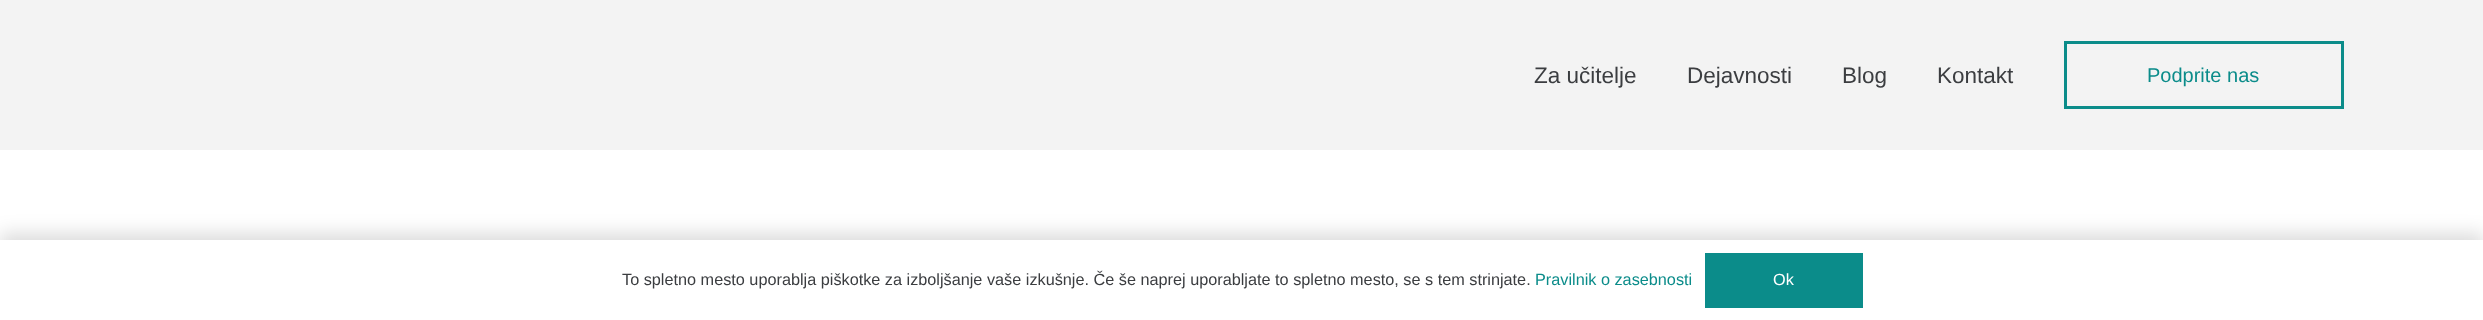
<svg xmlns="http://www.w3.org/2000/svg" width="2483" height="320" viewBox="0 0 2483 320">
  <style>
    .t1 { font: 22.5px Liberation Sans; fill: #3b3d40; }
    .t2 { font: 20px Liberation Sans; fill: #0b8c8a; }
    .t3 { font: 16.25px Liberation Sans; fill: #3b3d40; }
    .t4 { font: 16.25px Liberation Sans; fill: #0b8c8a; }
    .t5 { font: 16.25px Liberation Sans; fill: #fff; }
  </style>
  <rect width="100%" height="100%" fill="#fff"/>
  <rect x="0" y="0" width="2483" height="150" fill="#f3f3f3"/>
  <text x="1534" y="83" class="t1">Za učitelje</text>
  <text x="1687" y="83" class="t1">Dejavnosti</text>
  <text x="1842" y="83" class="t1">Blog</text>
  <text x="1937" y="83" class="t1">Kontakt</text>
  <rect x="2065.5" y="42.5" width="277" height="65" fill="none" stroke="#0b8c8a" stroke-width="3"/>
  <text x="2147" y="82" class="t2">Podprite nas</text>
  <rect x="0" y="234" width="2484" height="80" fill="#00000026" filter="blur(9.5px)"/>
  <rect x="0" y="240" width="2483" height="80" fill="#fff"/>
  <text x="622" y="285" class="t3">To spletno mesto uporablja piškotke za izboljšanje vaše izkušnje. Če še naprej uporabljate to spletno mesto, se s tem strinjate.</text>
  <text x="1535" y="285" class="t4">Pravilnik o zasebnosti</text>
  <rect x="1705" y="253" width="158" height="55" fill="#0b8c8a"/>
  <text x="1773" y="285" class="t5">Ok</text>
</svg>
